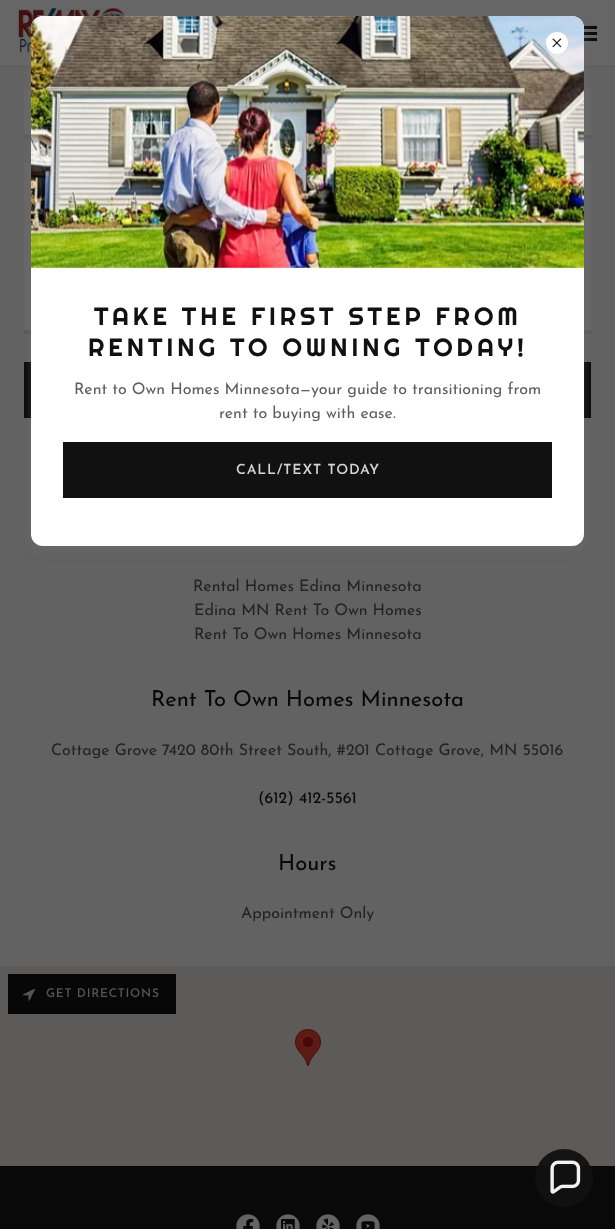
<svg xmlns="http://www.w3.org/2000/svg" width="615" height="1229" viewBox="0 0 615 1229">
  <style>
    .t1 { font: 25px Righteous; letter-spacing: 4px; fill: #111; }
    .t2 { font: 16px Josefin Sans; fill: #5e5e5e; }
    .t3 { font: 600 14px Josefin Sans; letter-spacing: 0.9px; fill: #d4d4d4; }
    .t4 { font: 16px Josefin Sans; fill: #232323; }
    .t5 { font: 22px Josefin Sans; fill: #080808; }
    .t6 { font: 16px Josefin Sans; fill: #080808; }
    .t7 { font: 600 12px Josefin Sans; letter-spacing: 0.75px; fill: #555; }
  </style>
  <rect width="100%" height="100%" fill="#090909"/>
  <rect x="0" y="0" width="615" height="66" fill="#666"/>
  <image x="16" y="8" width="110" height="48" href="images/1.png"/>
  <rect x="578" y="26" width="19" height="3" fill="#0b0b0b"/>
  <rect x="578" y="32" width="19" height="3" fill="#0b0b0b"/>
  <rect x="578" y="38" width="19" height="3" fill="#0b0b0b"/>
  <rect x="0" y="66" width="615" height="1" fill="#5a5a5a"/>
  <rect x="0" y="67" width="615" height="899" fill="#626262"/>
  <rect x="24" y="89" width="567" height="46" fill="#666"/>
  <rect x="24" y="135" width="567" height="4" fill="#5a5a5a"/>
  <rect x="24" y="163" width="567" height="167" fill="#666"/>
  <rect x="24" y="330" width="567" height="4" fill="#5a5a5a"/>
  <rect x="24" y="362" width="567" height="56" fill="#070707"/>
  <rect x="31" y="20" width="553" height="530" rx="12" fill="#75757566" filter="blur(6px)"/>
  <rect x="31" y="16" width="553" height="530" rx="12" fill="#fff"/>
  <image x="31" y="16" width="553" height="252" href="images/3.png"/>
  <circle cx="557" cy="43" r="11" fill="#fff"/>
  <image x="552" y="38" width="10" height="10" href="images/2.png"/>
  <text x="94" y="325" class="t1">TAKE THE FIRST STEP FROM</text>
  <text x="88" y="356" class="t1">RENTING TO OWNING TODAY!</text>
  <text x="74" y="394" class="t2">Rent to Own Homes Minnesota—your guide to transitioning from</text>
  <text x="219" y="418" class="t2">rent to buying with ease.</text>
  <rect x="63" y="442" width="489" height="56" fill="#111"/>
  <text x="236" y="474" class="t3">CALL/TEXT TODAY</text>
  <text x="193" y="591" class="t4">Rental Homes Edina Minnesota</text>
  <text x="194" y="615" class="t4">Edina MN Rent To Own Homes</text>
  <text x="194" y="639" class="t4">Rent To Own Homes Minnesota</text>
  <text x="151" y="706" class="t5">Rent To Own Homes Minnesota</text>
  <text x="51" y="755" class="t4">Cottage Grove 7420 80th Street South, #201 Cottage Grove, MN 55016</text>
  <text x="258" y="803" class="t6">(612) 412-5561</text>
  <text x="278" y="870" class="t5">Hours</text>
  <text x="241" y="918" class="t4">Appointment Only</text>
  <rect x="0" y="966" width="615" height="200" fill="#5c5b59"/>
  <image x="295" y="1029" width="26" height="37" href="images/4.png"/>
  <rect x="8" y="974" width="168" height="40" fill="#070707"/>
  <image x="23" y="988" width="12" height="13" href="images/5.png"/>
  <text x="46" y="997" class="t7">GET DIRECTIONS</text>
  <image x="236" y="1214" width="24" height="15" href="images/6.png"/>
  <image x="276" y="1214" width="24" height="15" href="images/7.png"/>
  <image x="316" y="1214" width="24" height="15" href="images/8.png"/>
  <image x="356" y="1214" width="24" height="15" href="images/9.png"/>
  <circle cx="564" cy="1178" r="29" fill="#111111f2"/>
  <image x="550" y="1160" width="31" height="34" href="images/10.png"/>
</svg>
